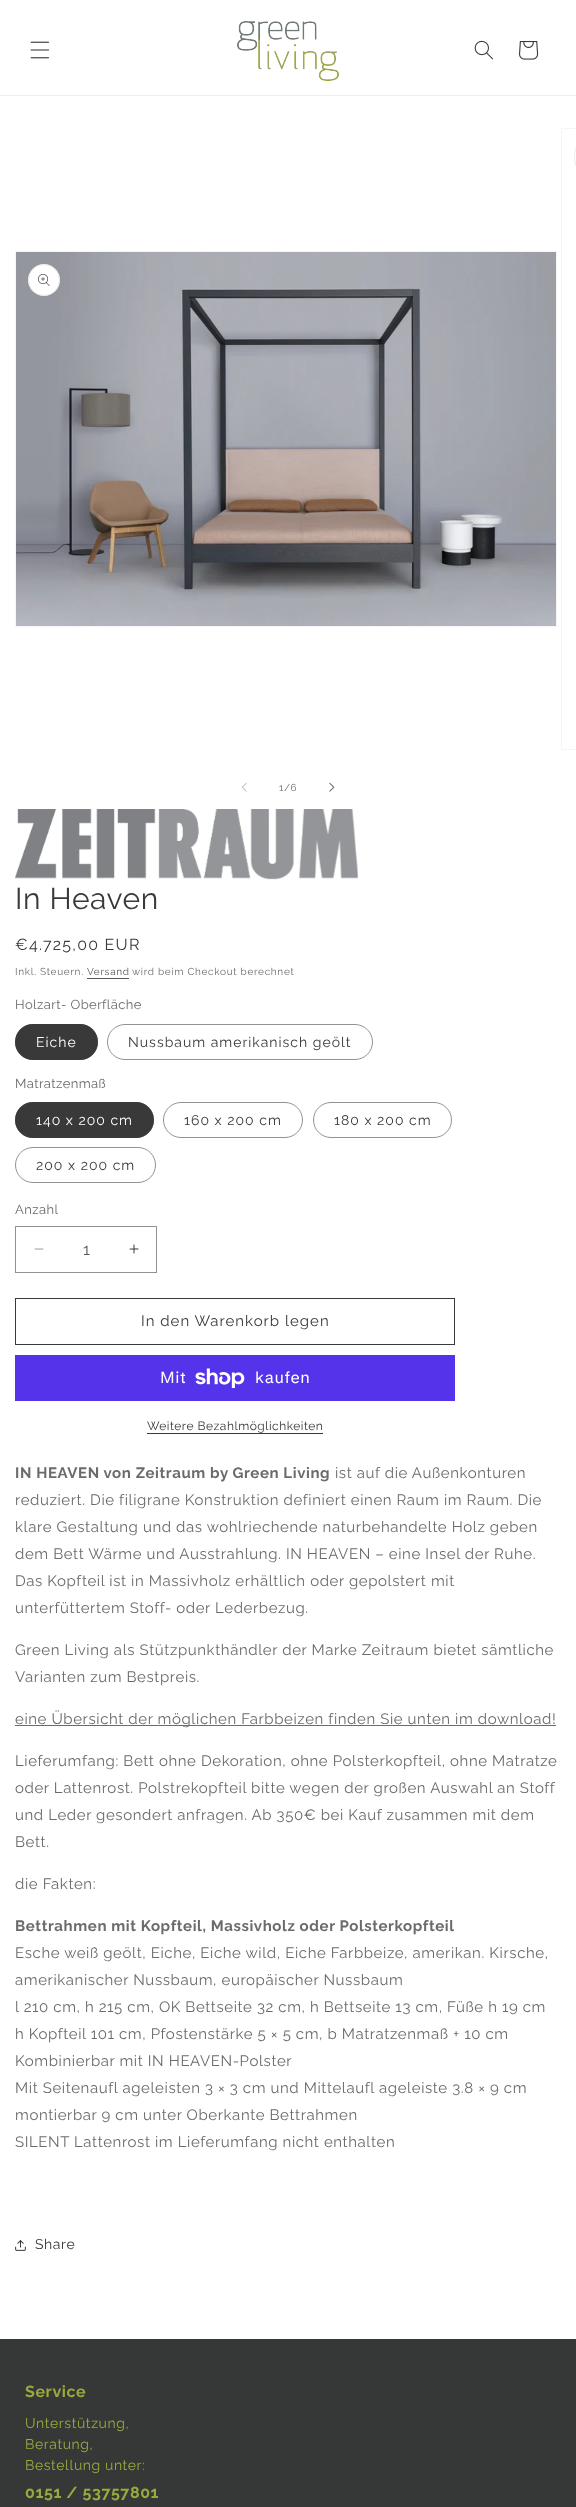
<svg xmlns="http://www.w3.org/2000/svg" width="576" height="2507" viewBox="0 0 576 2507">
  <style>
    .t1 { font: 10px Raleway; letter-spacing: 0.7px; fill: #6b6b6b; }
    .t2 { font: 30px Raleway; letter-spacing: 0.6px; fill: #3a393a; }
    .t3 { font: 16px Raleway; letter-spacing: 1.25px; fill: #3a393a; }
    .t4 { font: 10px Raleway; letter-spacing: 0.7px; fill: #585758; }
    .t5 { font: 13px Raleway; letter-spacing: 0.4px; fill: #6b6b6b; }
    .t6 { font: 14px Raleway; letter-spacing: 1px; fill: #fff; }
    .t7 { font: 14px Raleway; letter-spacing: 1px; fill: #3a393a; }
    .t8 { font: 16px Raleway; fill: #585758; }
    .t9 { font: 15px Raleway; letter-spacing: 1px; fill: #3a393a; }
    .t10 { font: 16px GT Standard; letter-spacing: 0.6px; fill: #fff; }
    .t11 { font: 12px Raleway; letter-spacing: 0.5px; fill: #3a393a; }
    .t12 { font: bold 15px Raleway; letter-spacing: 0.6px; fill: #6b6b6b; }
    .t13 { font: 15px Raleway; letter-spacing: 0.6px; fill: #6b6b6b; }
    .t14 { font: 14px Raleway; letter-spacing: 0.6px; fill: #3a393a; }
    .t15 { font: bold 16px Raleway; letter-spacing: 0.6px; fill: #9aaa3c; }
    .t16 { font: 14px Raleway; letter-spacing: 0.6px; fill: #9aaa3c; }
  </style>
  <rect width="100%" height="100%" fill="#fff"/>
  <rect x="0" y="95" width="576" height="1" fill="#efefef"/>
  <image x="30" y="41" width="20" height="18" href="images/1.png"/>
  <image x="237" y="21" width="102" height="60" href="images/2.png"/>
  <image x="474" y="40" width="19" height="20" href="images/3.png"/>
  <image x="519" y="41" width="20" height="19" href="images/4.png"/>
  <rect x="15.5" y="251.5" width="541" height="375" fill="none" stroke="#f5f5f5"/>
  <image x="16" y="252" width="540" height="374" href="images/5.png"/>
  <circle cx="44" cy="280" r="16" fill="#fff"/>
  <circle cx="44" cy="280" r="15.5" fill="none" stroke="#3a393a1a"/>
  <image x="38" y="274" width="12" height="12" href="images/6.png"/>
  <rect x="561.5" y="128.5" width="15" height="621" fill="none" stroke="#f5f5f5"/>
  <rect x="574.5" y="141.5" width="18" height="31" rx="15.5" fill="none" stroke="#ebebeb"/>
  <image x="241" y="782" width="6" height="10" href="images/7.png"/>
  <text x="279" y="791" class="t1">1/6</text>
  <image x="329" y="782" width="6" height="10" href="images/8.png"/>
  <image x="15" y="809" width="343" height="71" href="images/9.png"/>
  <text x="15" y="909" class="t2">In Heaven</text>
  <text x="15" y="950" class="t3">€4.725,00 EUR</text>
  <text x="15" y="975" class="t1">Inkl. Steuern.</text>
  <text x="87" y="975" class="t4">Versand</text>
  <rect x="87" y="978" width="42" height="1" fill="#585758"/>
  <text x="132" y="975" class="t1">wird beim Checkout berechnet</text>
  <text x="15" y="1009" class="t5">Holzart- Oberfläche</text>
  <rect x="15" y="1024" width="83" height="36" rx="18" fill="#3a393a"/>
  <rect x="15.5" y="1024.5" width="82" height="35" rx="17.5" fill="none" stroke="#3a393a8c"/>
  <text x="36" y="1047" class="t6">Eiche</text>
  <rect x="107.5" y="1024.5" width="265" height="35" rx="17.5" fill="none" stroke="#939293"/>
  <text x="128" y="1047" class="t7">Nussbaum amerikanisch geölt</text>
  <text x="15" y="1088" class="t5">Matratzenmaß</text>
  <rect x="15" y="1102" width="139" height="36" rx="18" fill="#3a393a"/>
  <rect x="15.5" y="1102.5" width="138" height="35" rx="17.5" fill="none" stroke="#3a393a8c"/>
  <text x="36" y="1125" class="t6">140 x 200 cm</text>
  <rect x="163.5" y="1102.5" width="139" height="35" rx="17.5" fill="none" stroke="#939293"/>
  <text x="184" y="1125" class="t7">160 x 200 cm</text>
  <rect x="313.5" y="1102.5" width="138" height="35" rx="17.5" fill="none" stroke="#939293"/>
  <text x="334" y="1125" class="t7">180 x 200 cm</text>
  <rect x="15.5" y="1147.5" width="140" height="35" rx="17.5" fill="none" stroke="#939293"/>
  <text x="36" y="1170" class="t7">200 x 200 cm</text>
  <text x="15" y="1214" class="t5">Anzahl</text>
  <image x="34" y="1248" width="10" height="2" href="images/10.png"/>
  <image x="129" y="1244" width="10" height="10" href="images/11.png"/>
  <rect x="15.5" y="1226.5" width="141" height="46" fill="none" stroke="#939293"/>
  <text x="83" y="1255" class="t8">1</text>
  <rect x="15.5" y="1298.5" width="439" height="46" fill="none" stroke="#3a393a"/>
  <text x="141" y="1326" class="t9">In den Warenkorb legen</text>
  <rect x="15" y="1355" width="440" height="46" fill="#5433eb"/>
  <text x="160" y="1383" class="t10">Mit</text>
  <image x="195" y="1368" width="50" height="20" href="images/12.png"/>
  <text x="255" y="1383" class="t10">kaufen</text>
  <text x="147" y="1430" class="t11">Weitere Bezahlmöglichkeiten</text>
  <rect x="147" y="1433" width="176" height="1" fill="#3a393a"/>
  <text x="15" y="1478" class="t12">IN HEAVEN von Zeitraum by Green Living</text>
  <text x="335" y="1478" class="t13">ist auf die Außenkonturen</text>
  <text x="15" y="1505" class="t13">reduziert. Die filigrane Konstruktion definiert einen Raum im Raum. Die</text>
  <text x="15" y="1532" class="t13">klare Gestaltung und das wohlriechende naturbehandelte Holz geben</text>
  <text x="15" y="1559" class="t13">dem Bett Wärme und Ausstrahlung. IN HEAVEN – eine Insel der Ruhe.</text>
  <text x="15" y="1586" class="t13">Das Kopfteil ist in Massivholz erhältlich oder gepolstert mit</text>
  <text x="15" y="1613" class="t13">unterfüttertem Stoff- oder Lederbezug.</text>
  <text x="15" y="1655" class="t13">Green Living als Stützpunkthändler der Marke Zeitraum bietet sämtliche</text>
  <text x="15" y="1682" class="t13">Varianten zum Bestpreis.</text>
  <rect x="15" y="1725" width="541" height="1" fill="#6b6b6b"/>
  <text x="15" y="1724" class="t13">eine Übersicht der möglichen Farbbeizen finden Sie unten im download!</text>
  <text x="15" y="1766" class="t13">Lieferumfang: Bett ohne Dekoration, ohne Polsterkopfteil, ohne Matratze</text>
  <text x="15" y="1793" class="t13">oder Lattenrost. Polstrekopfteil bitte wegen der großen Auswahl an Stoff</text>
  <text x="15" y="1820" class="t13">und Leder gesondert anfragen. Ab 350€ bei Kauf zusammen mit dem</text>
  <text x="15" y="1847" class="t13">Bett.</text>
  <text x="15" y="1889" class="t13">die Fakten:</text>
  <text x="15" y="1931" class="t12">Bettrahmen mit Kopfteil, Massivholz oder Polsterkopfteil</text>
  <text x="15" y="1958" class="t13">Esche weiß geölt, Eiche, Eiche wild, Eiche Farbbeize, amerikan. Kirsche,</text>
  <text x="15" y="1985" class="t13">amerikanischer Nussbaum, europäischer Nussbaum</text>
  <text x="15" y="2012" class="t13">l 210 cm, h 215 cm, OK Bettseite 32 cm, h Bettseite 13 cm, Füße h 19 cm</text>
  <text x="15" y="2039" class="t13">h Kopfteil 101 cm, Pfostenstärke 5 × 5 cm, b Matratzenmaß + 10 cm</text>
  <text x="15" y="2066" class="t13">Kombinierbar mit IN HEAVEN-Polster</text>
  <text x="15" y="2093" class="t13">Mit Seitenaufl ageleisten 3 × 3 cm und Mittelaufl ageleiste 3.8 × 9 cm</text>
  <text x="15" y="2120" class="t13">montierbar 9 cm unter Oberkante Bettrahmen</text>
  <text x="15" y="2147" class="t13">SILENT Lattenrost im Lieferumfang nicht enthalten</text>
  <image x="15" y="2240" width="11" height="11" href="images/13.png"/>
  <text x="35" y="2249" class="t14">Share</text>
  <rect x="0" y="2339" width="576" height="168" fill="#363837"/>
  <text x="25" y="2397" class="t15">Service</text>
  <text x="25" y="2428" class="t16">Unterstützung,</text>
  <text x="25" y="2449" class="t16">Beratung,</text>
  <text x="25" y="2470" class="t16">Bestellung unter:</text>
  <text x="25" y="2498" class="t15">0151 / 53757801</text>
</svg>
